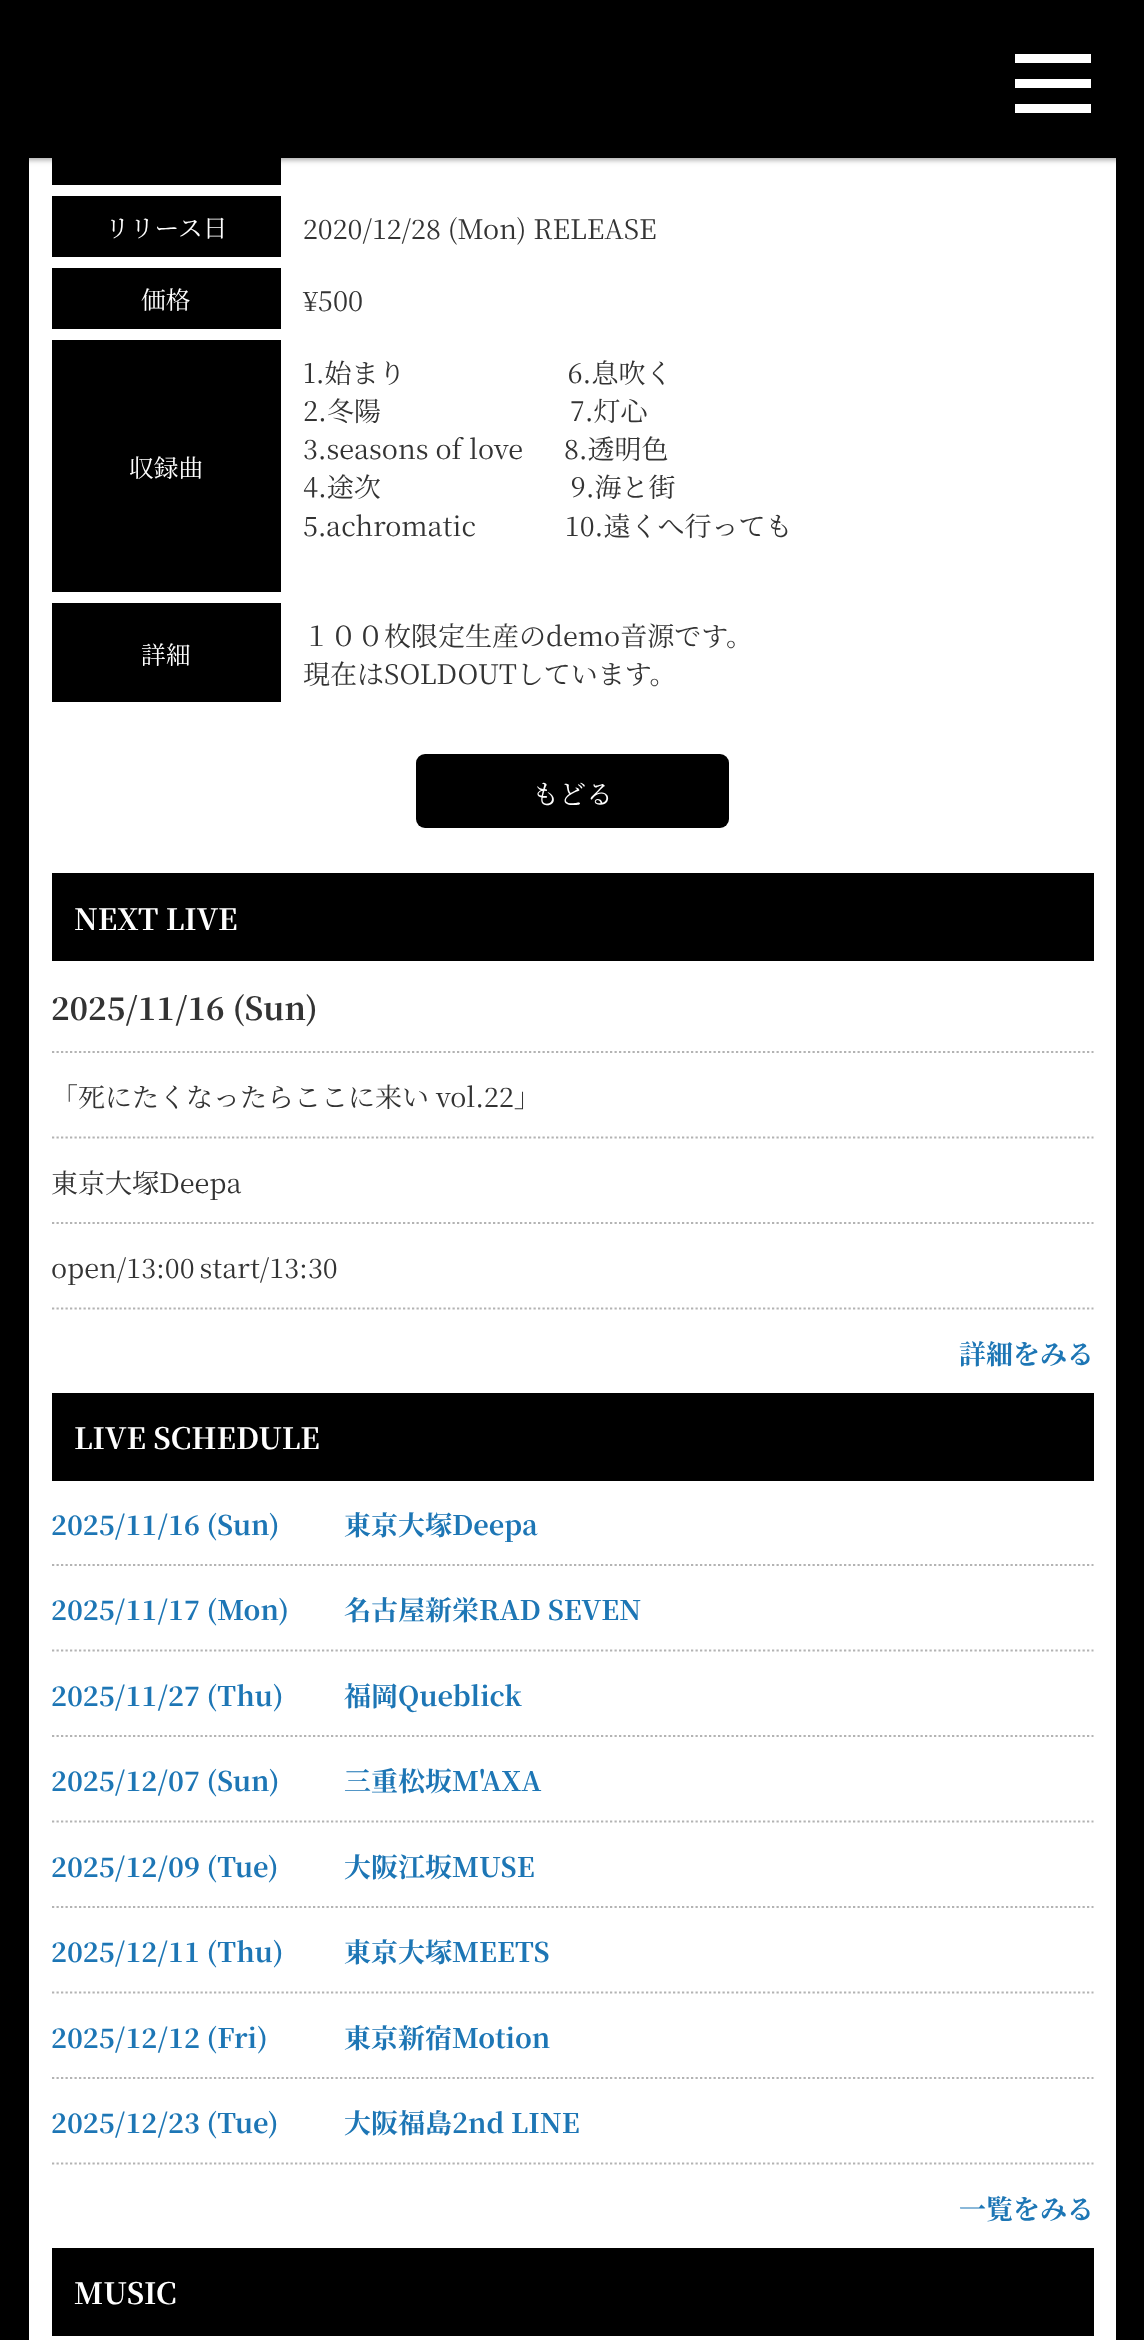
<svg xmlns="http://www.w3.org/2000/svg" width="1144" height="2340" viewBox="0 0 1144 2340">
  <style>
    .t1 { font: 24.75px Noto Serif JP; fill: #fff; }
    .t2 { font: 27px Noto Serif JP; fill: #333; }
    .t3 { font: 27px Noto Serif JP; fill: #fff; }
    .t4 { font: bold 29.25px Noto Serif JP; fill: #fff; }
    .t5 { font: bold 31.5px Noto Serif JP; fill: #333; }
    .t6 { font: bold 27px Noto Serif JP; fill: #1d76b5; }
  </style>
  <rect width="100%" height="100%" fill="#000"/>
  <rect x="29" y="158" width="1087" height="2182" fill="#fff"/>
  <rect x="52" y="158" width="229" height="27" fill="#000"/>
  <rect x="0" y="2" width="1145" height="158" fill="#0000003d" filter="blur(2px)"/>
  <rect x="0" y="2" width="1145" height="158" fill="#0000001f" filter="blur(3.5px)"/>
  <rect x="1015" y="54" width="76" height="9" fill="#fff"/>
  <rect x="1015" y="79" width="76" height="9" fill="#fff"/>
  <rect x="1015" y="104" width="76" height="9" fill="#fff"/>
  <rect x="52" y="196" width="229" height="61" fill="#000"/>
  <text x="105" y="237" class="t1">リリース日</text>
  <text x="303" y="239" class="t2">2020/12/28 (Mon) RELEASE</text>
  <rect x="52" y="268" width="229" height="61" fill="#000"/>
  <text x="141" y="309" class="t1">価格</text>
  <text x="303" y="311" class="t2">¥500</text>
  <rect x="52" y="340" width="229" height="252" fill="#000"/>
  <text x="129" y="477" class="t1">収録曲</text>
  <text x="303" y="383" class="t2">1.始まり　　　　　　6.息吹く</text>
  <text x="303" y="421" class="t2">2.冬陽　　　　　　　7.灯心</text>
  <text x="303" y="459" class="t2" xml:space="preserve">3.seasons of love　  8.透明色</text>
  <text x="303" y="497" class="t2" xml:space="preserve">4.途次　　　　　　    9.海と街</text>
  <text x="303" y="536" word-spacing="1" class="t2">5.achromatic　　　 10.遠くへ行っても</text>
  <rect x="52" y="603" width="229" height="99" fill="#000"/>
  <text x="141" y="664" class="t1">詳細</text>
  <text x="303" y="646" class="t2">１００枚限定生産のdemo音源です。</text>
  <text x="303" y="684" class="t2">現在はSOLDOUTしています。</text>
  <rect x="416" y="754" width="313" height="74" rx="9" fill="#000"/>
  <text x="532" y="804" class="t3">もどる</text>
  <rect x="52" y="873" width="1042" height="88" fill="#000"/>
  <text x="74" y="930" class="t4">NEXT LIVE</text>
  <path d="M52 1052H1093.5" fill="none" stroke="#b3b3b3" stroke-width="2.2" stroke-dasharray="2.25 2.25"/>
  <text x="51" y="1020" class="t5">2025/11/16 (Sun)</text>
  <path d="M52 1137.5H1093.5" fill="none" stroke="#b3b3b3" stroke-width="2.2" stroke-dasharray="2.25 2.25"/>
  <text x="51" y="1107" class="t2">「死にたくなったらここに来い vol.22」</text>
  <path d="M52 1223H1093.5" fill="none" stroke="#b3b3b3" stroke-width="2.2" stroke-dasharray="2.25 2.25"/>
  <text x="51" y="1193" class="t2">東京大塚Deepa</text>
  <path d="M52 1308.5H1093.5" fill="none" stroke="#b3b3b3" stroke-width="2.2" stroke-dasharray="2.25 2.25"/>
  <text x="51" y="1278" word-spacing="-2" class="t2">open/13:00 start/13:30</text>
  <text x="959" y="1364" class="t6">詳細をみる</text>
  <rect x="52" y="1393" width="1042" height="88" fill="#000"/>
  <text x="74" y="1449" class="t4">LIVE SCHEDULE</text>
  <path d="M52 1565H1093.5" fill="none" stroke="#b3b3b3" stroke-width="2.2" stroke-dasharray="2.25 2.25"/>
  <text x="51" y="1535" class="t6">2025/11/16 (Sun)</text>
  <text x="344" y="1535" class="t6">東京大塚Deepa</text>
  <path d="M52 1650.5H1093.5" fill="none" stroke="#b3b3b3" stroke-width="2.2" stroke-dasharray="2.25 2.25"/>
  <text x="51" y="1620" class="t6">2025/11/17 (Mon)</text>
  <text x="344" y="1620" class="t6">名古屋新栄RAD SEVEN</text>
  <path d="M52 1736H1093.5" fill="none" stroke="#b3b3b3" stroke-width="2.2" stroke-dasharray="2.25 2.25"/>
  <text x="51" y="1706" class="t6">2025/11/27 (Thu)</text>
  <text x="344" y="1706" class="t6">福岡Queblick</text>
  <path d="M52 1821.5H1093.5" fill="none" stroke="#b3b3b3" stroke-width="2.2" stroke-dasharray="2.25 2.25"/>
  <text x="51" y="1791" class="t6">2025/12/07 (Sun)</text>
  <text x="344" y="1791" class="t6">三重松坂M'AXA</text>
  <path d="M52 1907H1093.5" fill="none" stroke="#b3b3b3" stroke-width="2.2" stroke-dasharray="2.25 2.25"/>
  <text x="51" y="1877" class="t6">2025/12/09 (Tue)</text>
  <text x="344" y="1877" class="t6">大阪江坂MUSE</text>
  <path d="M52 1992.5H1093.5" fill="none" stroke="#b3b3b3" stroke-width="2.2" stroke-dasharray="2.25 2.25"/>
  <text x="51" y="1962" class="t6">2025/12/11 (Thu)</text>
  <text x="344" y="1962" class="t6">東京大塚MEETS</text>
  <path d="M52 2078H1093.5" fill="none" stroke="#b3b3b3" stroke-width="2.2" stroke-dasharray="2.25 2.25"/>
  <text x="51" y="2048" class="t6">2025/12/12 (Fri)</text>
  <text x="344" y="2048" class="t6">東京新宿Motion</text>
  <path d="M52 2163.5H1093.5" fill="none" stroke="#b3b3b3" stroke-width="2.2" stroke-dasharray="2.25 2.25"/>
  <text x="51" y="2133" class="t6">2025/12/23 (Tue)</text>
  <text x="344" y="2133" class="t6">大阪福島2nd LINE</text>
  <text x="959" y="2219" class="t6">一覧をみる</text>
  <rect x="52" y="2248" width="1042" height="88" fill="#000"/>
  <text x="74" y="2304" class="t4">MUSIC</text>
</svg>
